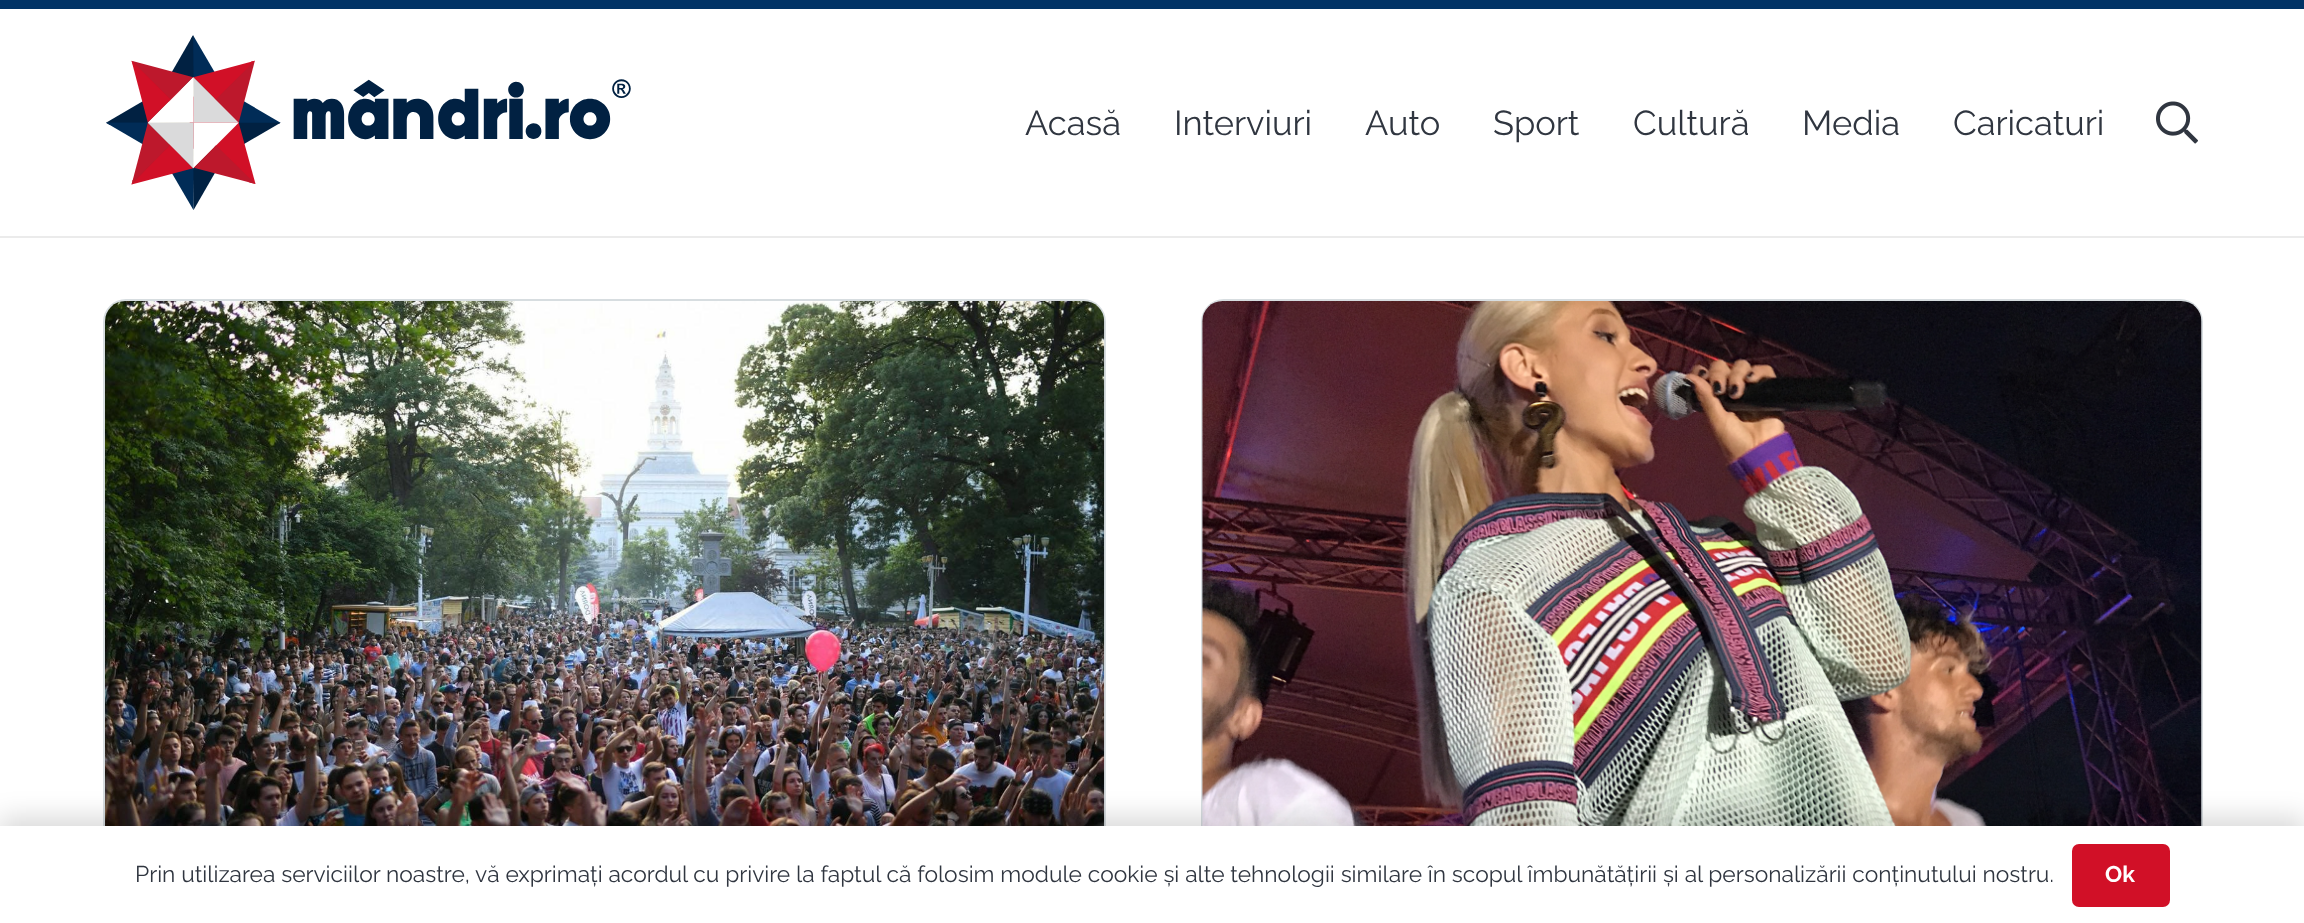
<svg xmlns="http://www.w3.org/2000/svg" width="2304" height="923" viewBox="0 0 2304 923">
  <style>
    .t1 { font: 34.5px Raleway; fill: #303640; }
    .t2 { font: 22.75px Raleway; fill: #303640; }
    .t3 { font: bold 22.75px Raleway; fill: #fff; }
  </style>
  <rect width="100%" height="100%" fill="#fff"/>
  <rect x="0" y="0" width="2304" height="9" fill="#013366"/>
  <path d="M0 236V238H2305V11V236Z" fill="#ebebeb"/>
  <image x="106" y="35" width="525" height="175" href="images/1.png"/>
  <text x="1025" y="135" class="t1">Acasă</text>
  <text x="1174" y="135" class="t1">Interviuri</text>
  <text x="1365" y="135" class="t1">Auto</text>
  <text x="1493" y="135" class="t1">Sport</text>
  <text x="1633" y="135" class="t1">Cultură</text>
  <text x="1802" y="135" class="t1">Media</text>
  <text x="1953" y="135" class="t1">Caricaturi</text>
  <image x="2156" y="101" width="42" height="43" href="images/2.png"/>
  <rect x="104" y="300" width="1001" height="564" rx="22" fill="none" stroke="#d7dde0" stroke-width="2"/>
  <image x="105" y="301" width="1000" height="525" href="images/3.png"/>
  <rect x="1202" y="300" width="1000" height="564" rx="22" fill="none" stroke="#d7dde0" stroke-width="2"/>
  <image x="1202" y="301" width="1000" height="525" href="images/4.png"/>
  <rect x="0" y="817" width="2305" height="98" fill="#00000026" filter="blur(13px)"/>
  <rect x="0" y="826" width="2304" height="97" fill="#fff"/>
  <text x="135" y="882" class="t2">Prin utilizarea serviciilor noastre, vă exprimați acordul cu privire la faptul că folosim module cookie și alte tehnologii similare în scopul îmbunătățirii și al personalizării conținutului nostru.</text>
  <rect x="2072" y="844" width="98" height="63" rx="7" fill="#d11027"/>
  <text x="2105" y="882" class="t3">Ok</text>
</svg>
